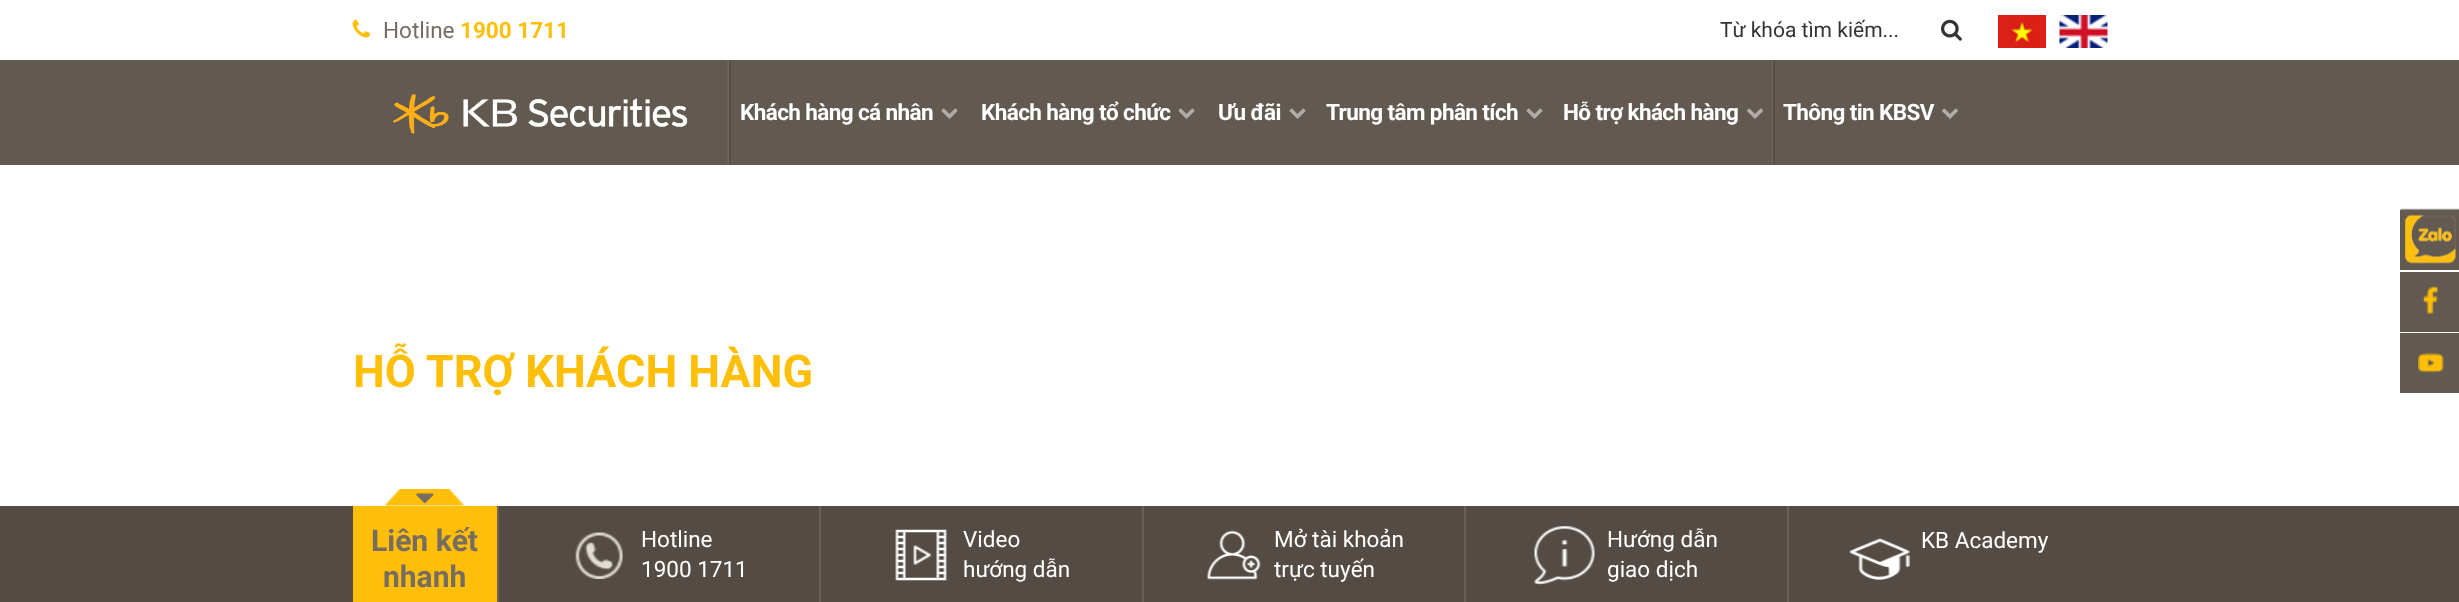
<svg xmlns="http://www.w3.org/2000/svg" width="2459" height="602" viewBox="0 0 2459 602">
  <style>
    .t1 { font: 22.5px Roboto; fill: #776c61; }
    .t2 { font: bold 22.5px Roboto; fill: #ffbf09; }
    .t3 { font: 21px Roboto; fill: #333; }
    .t4 { font: bold 22.5px Roboto; letter-spacing: -0.6px; fill: #fff; }
    .t5 { font: bold 45px Roboto; fill: #ffbf09; }
    .t6 { font: bold 30px Roboto; fill: #776c61; }
    .t7 { font: 22.5px Roboto; fill: #fff; }
  </style>
  <rect width="100%" height="100%" fill="#fff"/>
  <image x="352" y="19" width="19" height="19" href="images/1.png"/>
  <text x="383" y="38" class="t1">Hotline</text>
  <text x="460" y="38" class="t2">1900 1711</text>
  <text x="1720" y="37" class="t3">Từ khóa tìm kiếm...</text>
  <image x="1941" y="19" width="21" height="22" href="images/2.png"/>
  <image x="1998" y="15" width="48" height="33" href="images/3.png"/>
  <image x="2059" y="15" width="49" height="33" href="images/4.png"/>
  <rect x="0" y="60" width="2459" height="105" fill="#625950"/>
  <image x="392" y="94" width="296" height="40" href="images/5.png"/>
  <image x="727" y="60" width="4" height="105" href="images/6.png"/>
  <text x="740" y="120" class="t4">Khách hàng cá nhân</text>
  <image x="941" y="108" width="17" height="11" href="images/7.png"/>
  <text x="981" y="120" class="t4">Khách hàng tổ chức</text>
  <image x="1178" y="108" width="17" height="11" href="images/7.png"/>
  <text x="1218" y="120" class="t4">Ưu đãi</text>
  <image x="1289" y="108" width="17" height="11" href="images/7.png"/>
  <text x="1326" y="120" class="t4">Trung tâm phân tích</text>
  <image x="1526" y="108" width="17" height="11" href="images/7.png"/>
  <text x="1563" y="120" class="t4">Hỗ trợ khách hàng</text>
  <image x="1747" y="108" width="16" height="11" href="images/8.png"/>
  <image x="1772" y="60" width="3" height="105" href="images/9.png"/>
  <text x="1783" y="120" class="t4">Thông tin KBSV</text>
  <image x="1942" y="108" width="16" height="11" href="images/8.png"/>
  <text x="353" y="387" class="t5">HỖ TRỢ KHÁCH HÀNG</text>
  <rect x="2400" y="210" width="59" height="60" fill="#625950"/>
  <image x="2400" y="208" width="59" height="56" href="images/10.png"/>
  <rect x="2400" y="272" width="59" height="60" fill="#625950"/>
  <image x="2422" y="286" width="16" height="29" href="images/11.png"/>
  <rect x="2400" y="333" width="59" height="60" fill="#625950"/>
  <image x="2418" y="352" width="26" height="21" href="images/12.png"/>
  <rect x="0" y="506" width="2459" height="96" fill="#544c44"/>
  <rect x="353" y="506" width="144" height="96" fill="#ffbf09"/>
  <image x="384" y="489" width="81" height="17" href="images/13.png"/>
  <image x="416" y="493" width="18" height="11" href="images/14.png"/>
  <text x="371" y="551" class="t6">Liên kết</text>
  <text x="383" y="587" class="t6">nhanh</text>
  <rect x="497" y="506" width="2" height="96" fill="#6a6057"/>
  <image x="575" y="532" width="48" height="47" href="images/15.png"/>
  <text x="641" y="547" class="t7">Hotline</text>
  <text x="641" y="577" class="t7">1900 1711</text>
  <rect x="819" y="506" width="2" height="96" fill="#6a6057"/>
  <image x="895" y="529" width="52" height="52" href="images/16.png"/>
  <text x="963" y="547" class="t7">Video</text>
  <text x="963" y="577" class="t7">hướng dẫn</text>
  <rect x="1142" y="506" width="2" height="96" fill="#6a6057"/>
  <image x="1207" y="530" width="54" height="50" href="images/17.png"/>
  <text x="1274" y="547" class="t7">Mở tài khoản</text>
  <text x="1274" y="577" class="t7">trực tuyến</text>
  <rect x="1464" y="506" width="2" height="96" fill="#6a6057"/>
  <image x="1534" y="526" width="61" height="59" href="images/18.png"/>
  <text x="1607" y="547" class="t7">Hướng dẫn</text>
  <text x="1607" y="577" class="t7">giao dịch</text>
  <rect x="1787" y="506" width="2" height="96" fill="#6a6057"/>
  <image x="1849" y="538" width="61" height="42" href="images/19.png"/>
  <text x="1921" y="548" class="t7">KB Academy</text>
</svg>
